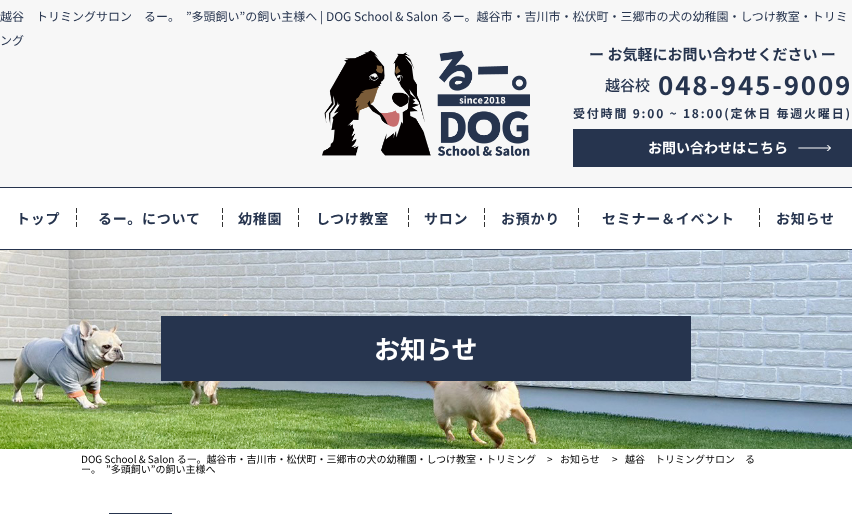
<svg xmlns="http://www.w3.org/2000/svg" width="852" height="514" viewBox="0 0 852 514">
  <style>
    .t1 { font: 12px Noto Sans JP; fill: #26344e; }
    .t2 { font: bold 15px Noto Sans JP; fill: #26344e; }
    .t3 { font: 500 15px Noto Sans JP; fill: #26344e; }
    .t4 { font: bold 26px Noto Sans JP; letter-spacing: 1.8px; fill: #26344e; }
    .t5 { font: bold 12px Noto Sans JP; letter-spacing: 1.8px; fill: #26344e; }
    .t6 { font: bold 14px Noto Sans JP; fill: #fff; }
    .t7 { font: bold 14px Noto Sans JP; letter-spacing: 0.75px; fill: #26344e; }
    .t8 { font: bold 26px Noto Sans JP; fill: #fff; }
    .t9 { font: 10px Noto Sans JP; fill: #000; }
  </style>
  <rect width="100%" height="100%" fill="#fff"/>
  <rect x="0" y="0" width="852" height="187" fill="#f7f7f7"/>
  <text x="0" y="21" class="t1">越谷　トリミングサロン　るー。　”多頭飼い”の飼い主様へ</text>
  <text x="320" y="21" class="t1">| DOG School &amp; Salon るー。越谷市・吉川市・松伏町・三郷市の犬の幼稚園・しつけ教室・トリミ</text>
  <text x="0" y="45" class="t1">ング</text>
  <image x="322" y="50" width="208" height="106" href="images/1.png"/>
  <text x="589" y="60" class="t2">ー お気軽にお問い合わせください ー</text>
  <text x="605" y="91" class="t3">越谷校</text>
  <text x="658" y="95" class="t4">048-945-9009</text>
  <text x="573" y="118" class="t5">受付時間 9:00 ~ 18:00(定休日 毎週火曜日)</text>
  <rect x="573" y="129" width="279" height="38" fill="#26344e"/>
  <text x="648" y="153" class="t6">お問い合わせはこちら</text>
  <image x="798" y="145" width="33" height="6" href="images/2.png"/>
  <rect x="0" y="187" width="852" height="1" fill="#26344e"/>
  <rect x="0" y="249" width="852" height="1" fill="#26344e"/>
  <text x="16" y="224" class="t7">トップ</text>
  <rect x="76" y="208" width="1" height="5" fill="#333"/>
  <rect x="76" y="215" width="1" height="5" fill="#333"/>
  <rect x="76" y="222" width="1" height="5" fill="#333"/>
  <text x="98" y="224" class="t7">るー。について</text>
  <rect x="222" y="208" width="1" height="5" fill="#333"/>
  <rect x="222" y="215" width="1" height="5" fill="#333"/>
  <rect x="222" y="222" width="1" height="5" fill="#333"/>
  <text x="238" y="224" class="t7">幼稚園</text>
  <rect x="298" y="208" width="1" height="5" fill="#333"/>
  <rect x="298" y="215" width="1" height="5" fill="#333"/>
  <rect x="298" y="222" width="1" height="5" fill="#333"/>
  <text x="316" y="224" class="t7">しつけ教室</text>
  <rect x="408" y="208" width="1" height="5" fill="#333"/>
  <rect x="408" y="215" width="1" height="5" fill="#333"/>
  <rect x="408" y="222" width="1" height="5" fill="#333"/>
  <text x="424" y="224" class="t7">サロン</text>
  <rect x="484" y="208" width="1" height="5" fill="#333"/>
  <rect x="484" y="215" width="1" height="5" fill="#333"/>
  <rect x="484" y="222" width="1" height="5" fill="#333"/>
  <text x="501" y="224" class="t7">お預かり</text>
  <rect x="578" y="208" width="1" height="5" fill="#333"/>
  <rect x="578" y="215" width="1" height="5" fill="#333"/>
  <rect x="578" y="222" width="1" height="5" fill="#333"/>
  <text x="602" y="224" class="t7">セミナー＆イベント</text>
  <rect x="759" y="208" width="1" height="5" fill="#333"/>
  <rect x="759" y="215" width="1" height="5" fill="#333"/>
  <rect x="759" y="222" width="1" height="5" fill="#333"/>
  <text x="776" y="224" class="t7">お知らせ</text>
  <image x="0" y="250" width="852" height="199" href="images/3.png"/>
  <rect x="161" y="316" width="530" height="65" fill="#26344e"/>
  <text x="374" y="359" class="t8">お知らせ</text>
  <text x="81" y="463" class="t9">DOG School &amp; Salon るー。越谷市・吉川市・松伏町・三郷市の犬の幼稚園・しつけ教室・トリミング</text>
  <text x="547" y="463" class="t9">&gt;</text>
  <text x="560" y="463" class="t9">お知らせ</text>
  <text x="612" y="463" class="t9">&gt;</text>
  <text x="625" y="463" class="t9">越谷　トリミングサロン　る</text>
  <text x="81" y="473" class="t9">ー。　”多頭飼い”の飼い主様へ</text>
  <rect x="109.5" y="513.5" width="62" height="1" fill="none" stroke="#26344e"/>
</svg>
